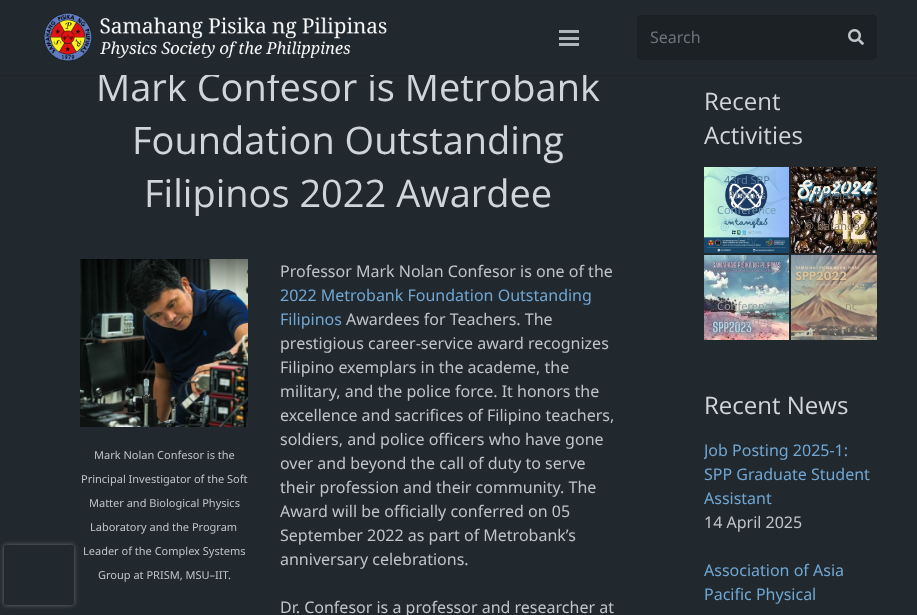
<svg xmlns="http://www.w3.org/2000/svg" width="917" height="615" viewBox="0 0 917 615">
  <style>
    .t1 { font: 38px Open Sans; fill: #d0d5db; }
    .t2 { font: 16px Noto Sans; fill: #6e7378; }
    .t3 { font: 11px Noto Sans; fill: #bfc4c9; }
    .t4 { font: 16px Noto Sans; fill: #bfc4c9; }
    .t5 { font: 16px Noto Sans; fill: #71a7d3; }
    .t6 { font: 24px Open Sans; fill: #d0d5db; }
    .t7 { font: 11px Noto Sans; fill: #597d9a; }
    .t8 { font: 11px Noto Sans; fill: #78899e; }
    .t9 { font: 11px Noto Sans; fill: #779ab2; }
    .t10 { font: 11px Noto Sans; fill: #9dcbda; }
    .t11 { font: 11px Noto Sans; fill: #345e7c; }
    .t12 { font: 11px Noto Sans; fill: #49403a; }
    .t13 { font: 11px Noto Sans; fill: #5f696c; }
    .t14 { font: 11px Noto Sans; fill: #5b4d44; }
    .t15 { font: 11px Noto Sans; fill: #80725e; }
    .t16 { font: 11px Noto Sans; fill: #98bbc2; }
    .t17 { font: 11px Noto Sans; fill: #939c9c; }
    .t18 { font: 11px Noto Sans; fill: #afa1aa; }
    .t19 { font: 11px Noto Sans; fill: #a3927b; }
  </style>
  <defs>
    <clipPath id="clip1"><path d="M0 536H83V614H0ZM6 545H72C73 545 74 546 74 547V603C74 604 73 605 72 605H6C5 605 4 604 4 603V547C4 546 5 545 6 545Z" clip-rule="evenodd"/></clipPath>
    <clipPath id="clip2"><rect x="704" y="438" width="173" height="96"/></clipPath>
  </defs>
  <rect width="100%" height="100%" fill="#21282e"/>
  <g clip-path="url(#clip1)">
    <rect x="4" y="545" width="70" height="60" rx="2" fill="#6d6e70" filter="blur(2.5px)"/>
  </g>
  <rect x="0" y="75" width="917" height="1" fill="#00000014"/>
  <text x="96" y="101" class="t1">Mark Confesor is Metrobank</text>
  <rect x="99" y="71" width="488" height="4" fill="#21282e"/>
  <image x="43" y="13" width="344" height="49" href="images/1.png"/>
  <rect x="559" y="37" width="20" height="3" fill="#b0b6be"/>
  <rect x="559" y="30" width="20" height="3" fill="#b0b6be"/>
  <rect x="559" y="43" width="20" height="3" fill="#b0b6be"/>
  <rect x="637" y="15" width="240" height="45" rx="5" fill="#1c2126"/>
  <path d="M642 16H872C875 16 877 18 877 21V20C877 17 875 15 872 15H642C639 15 637 17 637 20V21C637 18 639 16 642 16Z" fill="#00000014"/>
  <text x="650" y="43" class="t2">Search</text>
  <image x="848" y="29" width="16" height="16" href="images/2.png"/>
  <text x="132" y="154" class="t1">Foundation Outstanding</text>
  <text x="144" y="207" class="t1">Filipinos 2022 Awardee</text>
  <image x="80" y="259" width="168" height="168" href="images/3.png"/>
  <text x="94" y="459" class="t3">Mark Nolan Confesor is the</text>
  <text x="81" y="483" class="t3">Principal Investigator of the Soft</text>
  <text x="89" y="507" class="t3">Matter and Biological Physics</text>
  <text x="90" y="531" class="t3">Laboratory and the Program</text>
  <text x="83" y="555" class="t3">Leader of the Complex Systems</text>
  <text x="98" y="579" class="t3">Group at PRISM, MSU–IIT.</text>
  <text x="280" y="277" class="t4">Professor Mark Nolan Confesor is one of the</text>
  <text x="280" y="301" class="t5">2022 Metrobank Foundation Outstanding</text>
  <text x="280" y="325" class="t5">Filipinos</text>
  <text x="346" y="325" class="t4">Awardees for Teachers. The</text>
  <text x="280" y="349" class="t4">prestigious career-service award recognizes</text>
  <text x="280" y="373" class="t4">Filipino exemplars in the academe, the</text>
  <text x="280" y="397" class="t4">military, and the police force. It honors the</text>
  <text x="280" y="421" class="t4">excellence and sacrifices of Filipino teachers,</text>
  <text x="280" y="445" class="t4">soldiers, and police officers who have gone</text>
  <text x="280" y="469" class="t4">over and beyond the call of duty to serve</text>
  <text x="280" y="493" class="t4">their profession and their community. The</text>
  <text x="280" y="517" class="t4">Award will be officially conferred on 05</text>
  <text x="280" y="541" class="t4">September 2022 as part of Metrobank’s</text>
  <text x="280" y="565" class="t4">anniversary celebrations.</text>
  <text x="280" y="613" class="t4">Dr. Confesor is a professor and researcher at</text>
  <text x="704" y="110" class="t6">Recent</text>
  <text x="704" y="144" class="t6">Activities</text>
  <image x="704" y="167" width="85" height="86" href="images/4.png"/>
  <text x="724" y="184" class="t7">43rd SPP</text>
  <text x="728" y="199" class="t8">Physics</text>
  <text x="717" y="214" class="t9">Conference</text>
  <text x="720" y="230" class="t10">@</text>
  <text x="737" y="245" class="t11">City</text>
  <image x="791" y="167" width="86" height="86" href="images/5.png"/>
  <text x="810" y="184" class="t12">42nd SPP</text>
  <text x="815" y="199" class="t13">Physics</text>
  <text x="805" y="214" class="t14">Conference</text>
  <text x="804" y="230" class="t15">@ Batangas</text>
  <image x="704" y="255" width="85" height="85" href="images/6.png"/>
  <text x="760" y="294" class="t16">s</text>
  <text x="717" y="310" class="t17">Conference</text>
  <text x="721" y="325" class="t18">@ Siargao</text>
  <image x="791" y="255" width="86" height="85" href="images/7.png"/>
  <text x="845" y="310" class="t19">nc</text>
  <text x="704" y="414" class="t6">Recent News</text>
  <g clip-path="url(#clip2)">
    <text x="704" y="456" class="t5">Job Posting 2025-1:</text>
  </g>
  <text x="704" y="480" class="t5">SPP Graduate Student</text>
  <text x="704" y="504" class="t5">Assistant</text>
  <text x="704" y="528" class="t4">14 April 2025</text>
  <text x="704" y="576" class="t5">Association of Asia</text>
  <text x="704" y="600" class="t5">Pacific Physical</text>
</svg>
